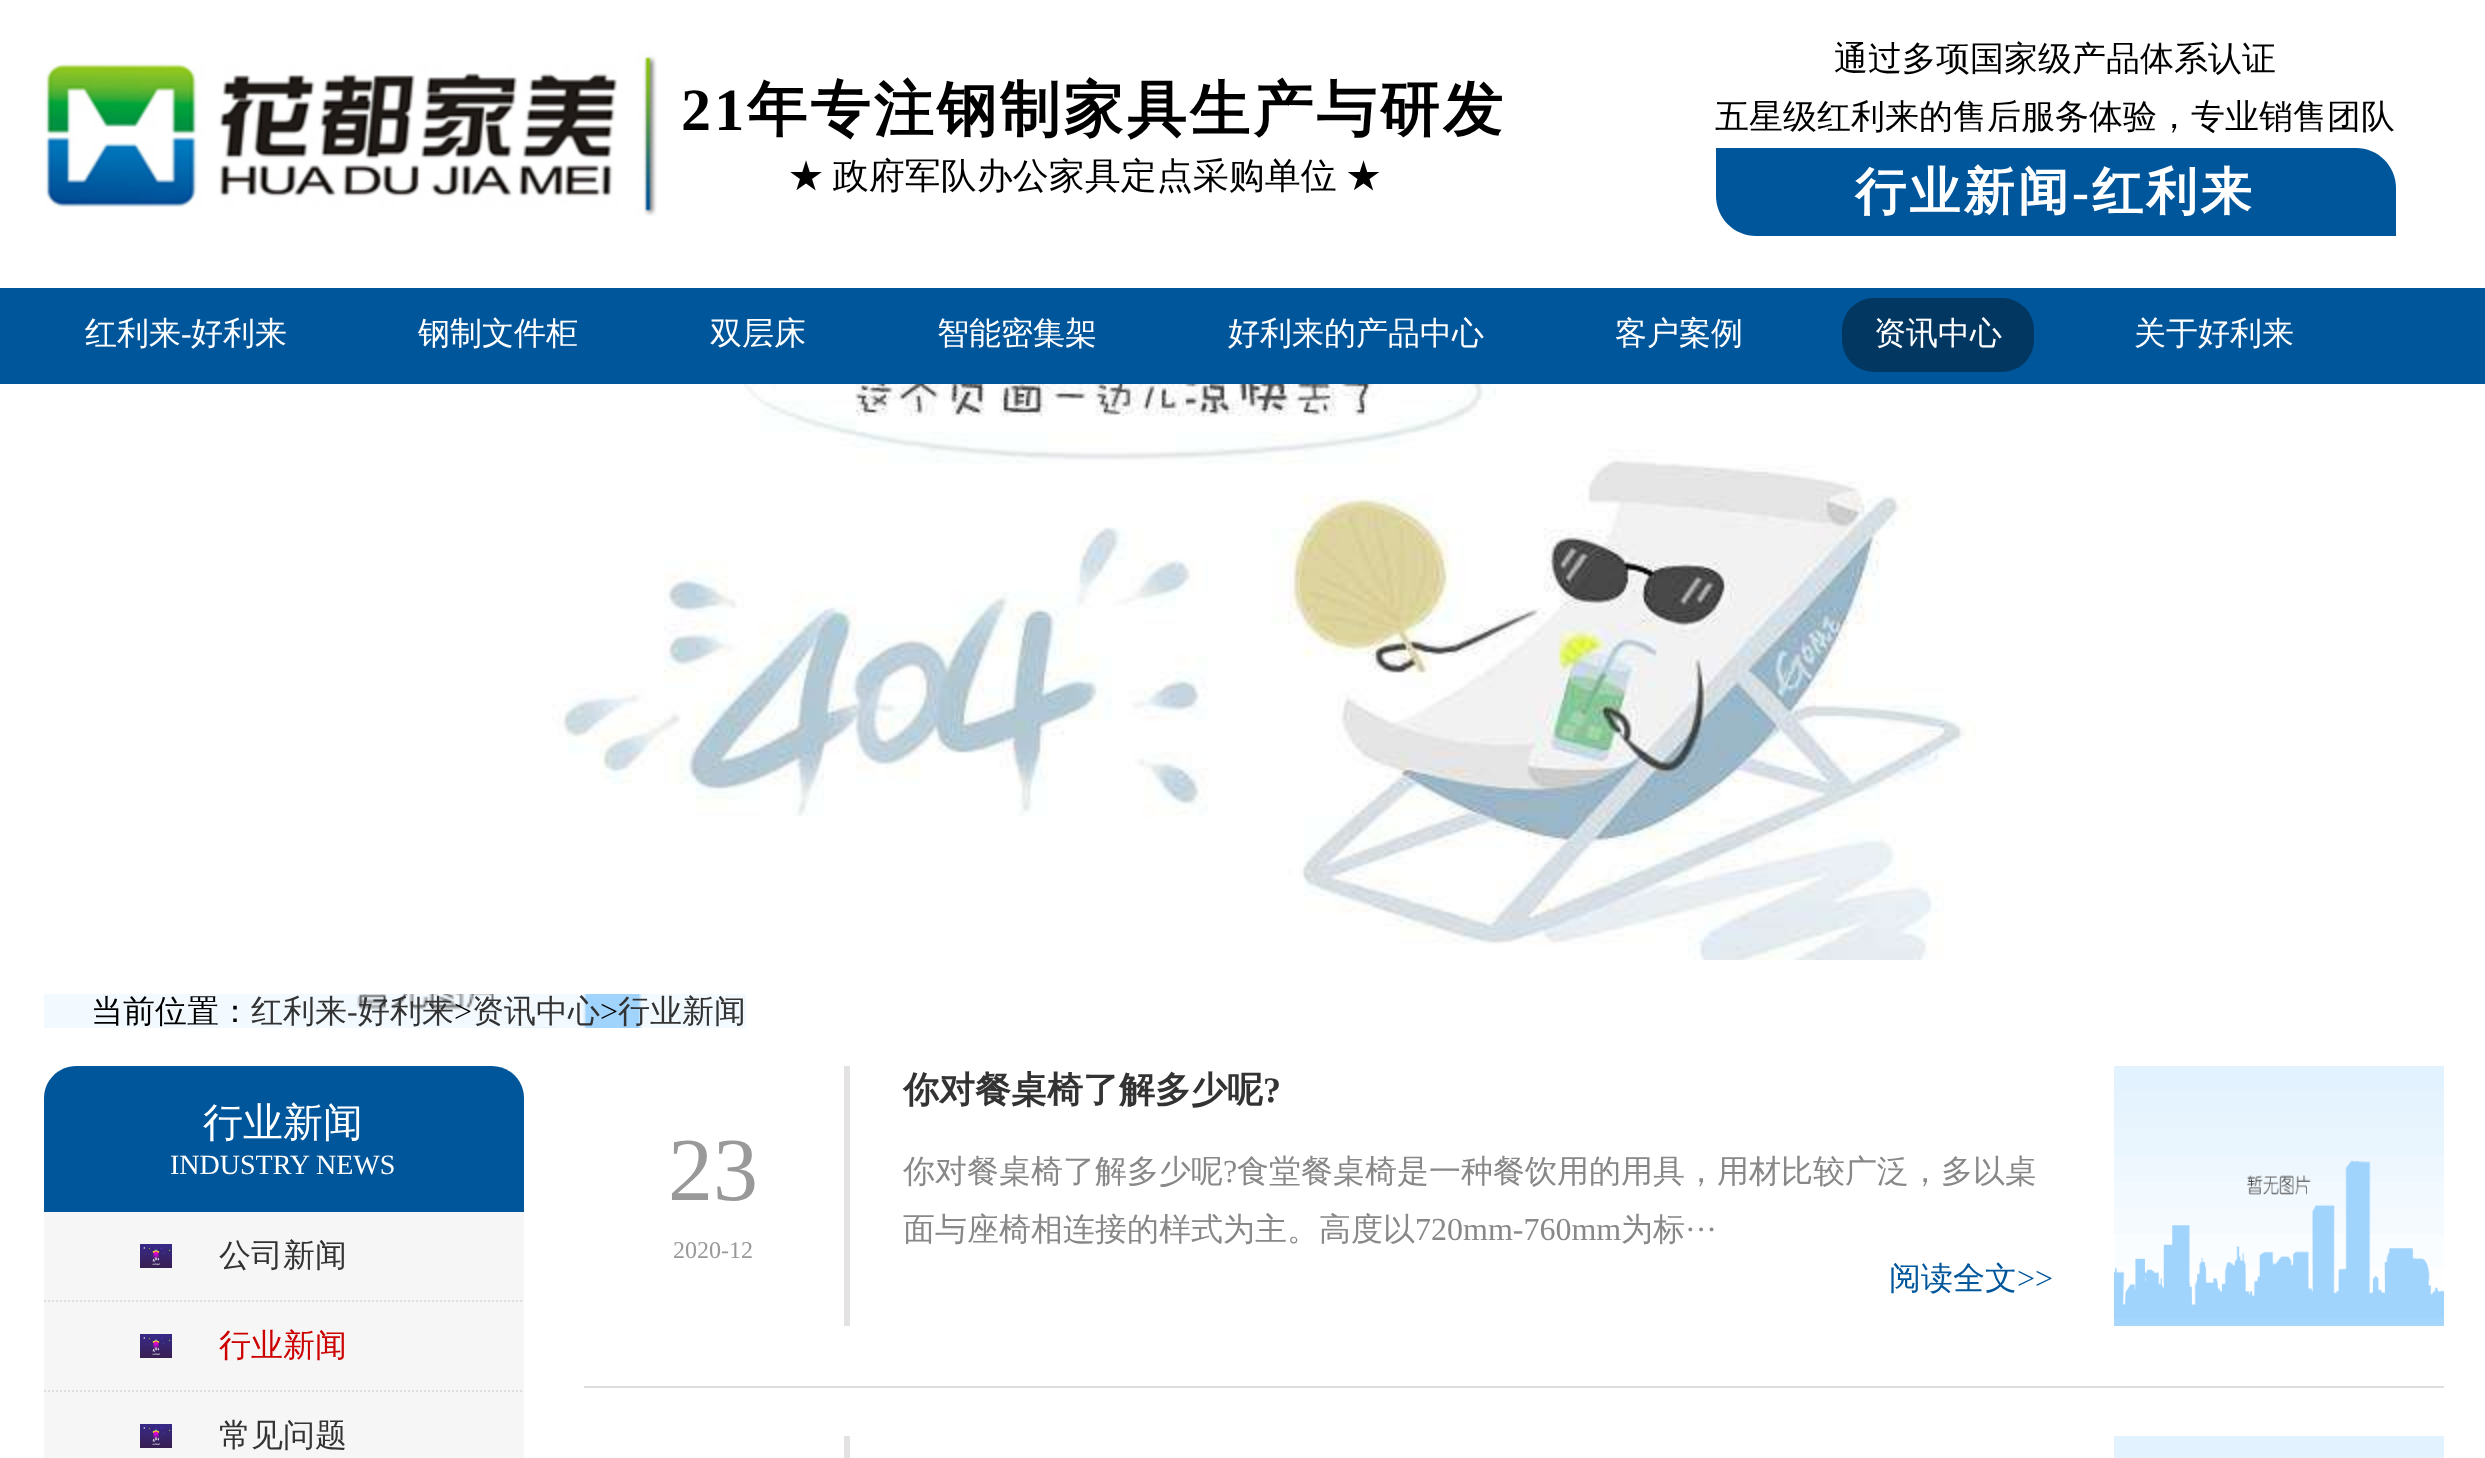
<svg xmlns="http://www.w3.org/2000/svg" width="2485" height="1458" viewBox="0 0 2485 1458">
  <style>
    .t1 { font: bold 60px Liberation Serif; letter-spacing: 3.25px; fill: #000; }
    .t2 { font: bold 60px WenQuanYi Zen Hei; letter-spacing: 3.25px; fill: #000; }
    .t3 { font: 500 36px WenQuanYi Zen Hei; fill: #000; }
    .t4 { font: 500 34px WenQuanYi Zen Hei; fill: #000; }
    .t5 { font: bold 51px WenQuanYi Zen Hei; letter-spacing: 3.25px; fill: #fff; }
    .t6 { font: bold 51px Liberation Serif; letter-spacing: 3.25px; fill: #fff; }
    .t7 { font: 500 32px WenQuanYi Zen Hei; fill: #fff; }
    .t8 { font: 32px Liberation Serif; fill: #fff; }
    .t9 { font: 500 32px WenQuanYi Zen Hei; fill: #000; }
    .t10 { font: 500 32px WenQuanYi Zen Hei; fill: #333; }
    .t11 { font: 32px Liberation Serif; fill: #333; }
    .t12 { font: 32px Liberation Serif; fill: #000; }
    .t13 { font: 500 40px WenQuanYi Zen Hei; fill: #fff; }
    .t14 { font: 28px Liberation Serif; fill: #fff; }
    .t15 { font: 500 32px WenQuanYi Zen Hei; fill: #c00; }
    .t16 { font: 90px Liberation Serif; fill: #999; }
    .t17 { font: 24px Liberation Serif; fill: #999; }
    .t18 { font: bold 36px WenQuanYi Zen Hei; fill: #333; }
    .t19 { font: bold 36px Liberation Serif; fill: #333; }
    .t20 { font: 500 32px WenQuanYi Zen Hei; fill: #888; }
    .t21 { font: 32px Liberation Serif; fill: #888; }
    .t22 { font: 500 32px WenQuanYi Zen Hei; fill: #00569b; }
    .t23 { font: 32px Liberation Serif; fill: #00569b; }
  </style>
  <rect width="100%" height="100%" fill="#fff"/>
  <image x="45" y="52" width="612" height="164" href="images/1.png"/>
  <text x="681" y="130" class="t1">21</text>
  <text x="747" y="130" class="t2">年专注钢制家具生产与研发</text>
  <text x="788" y="188" word-spacing="-2" class="t3">★ 政府军队办公家具定点采购单位 ★</text>
  <text x="1834" y="70" class="t4">通过多项国家级产品体系认证</text>
  <text x="1715" y="128" class="t4">五星级红利来的售后服务体验，专业销售团队</text>
  <path d="M1716 148H2356C2378 148 2396 166 2396 188V236H1756C1734 236 1716 218 1716 196Z" fill="#00569b"/>
  <text x="1855" y="209" class="t5">行业新闻</text>
  <text x="2072" y="209" class="t6">-</text>
  <text x="2092" y="209" class="t5">红利来</text>
  <rect x="0" y="288" width="2485" height="96" fill="#00569b"/>
  <text x="85" y="344" class="t7">红利来</text>
  <text x="181" y="344" class="t8">-</text>
  <text x="191" y="344" class="t7">好利来</text>
  <text x="418" y="344" class="t7">钢制文件柜</text>
  <text x="710" y="344" class="t7">双层床</text>
  <text x="937" y="344" class="t7">智能密集架</text>
  <text x="1228" y="344" class="t7">好利来的产品中心</text>
  <text x="1615" y="344" class="t7">客户案例</text>
  <rect x="1842" y="298" width="192" height="74" rx="32" fill="#023761"/>
  <text x="1874" y="344" class="t7">资讯中心</text>
  <text x="2134" y="344" class="t7">关于好利来</text>
  <image x="552" y="384" width="1424" height="576" href="images/2.png"/>
  <image x="44" y="994" width="702" height="34" href="images/3.png"/>
  <text x="91" y="1022" class="t9">当前位置：</text>
  <text x="251" y="1022" class="t10">红利来</text>
  <text x="347" y="1022" class="t11">-</text>
  <text x="358" y="1022" class="t10">好利来</text>
  <text x="454" y="1022" class="t12">&gt;</text>
  <text x="472" y="1022" class="t10">资讯中心</text>
  <text x="600" y="1022" class="t12">&gt;</text>
  <text x="618" y="1022" class="t10">行业新闻</text>
  <path d="M108 1066H460C495.5 1066 524 1094.5 524 1130V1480H44V1130C44 1094.5 72.5 1066 108 1066Z" fill="#f6f6f6"/>
  <path d="M76 1066H492C509.5 1066 524 1080.5 524 1098V1212H44V1098C44 1080.5 58.5 1066 76 1066Z" fill="#00569b"/>
  <text x="203" y="1136" class="t13">行业新闻</text>
  <text x="170" y="1174" class="t14">INDUSTRY NEWS</text>
  <path d="M44 1301H524" fill="none" stroke="#ddd" stroke-width="2" stroke-dasharray="2 2"/>
  <image x="140" y="1244" width="32" height="24" href="images/4.png"/>
  <text x="219" y="1266" class="t10">公司新闻</text>
  <path d="M44 1391H524" fill="none" stroke="#ddd" stroke-width="2" stroke-dasharray="2 2"/>
  <image x="140" y="1334" width="32" height="24" href="images/4.png"/>
  <text x="219" y="1356" class="t15">行业新闻</text>
  <image x="140" y="1424" width="32" height="24" href="images/4.png"/>
  <text x="219" y="1446" class="t10">常见问题</text>
  <rect x="584" y="1386" width="1860" height="2" fill="#ddd"/>
  <rect x="844" y="1066" width="6" height="260" fill="#e3e1e2"/>
  <text x="668" y="1200" class="t16">23</text>
  <text x="673" y="1258" class="t17">2020-12</text>
  <text x="903" y="1102" class="t18">你对餐桌椅了解多少呢</text>
  <text x="1263" y="1102" class="t19">?</text>
  <text x="903" y="1182" class="t20">你对餐桌椅了解多少呢</text>
  <text x="1223" y="1182" class="t21">?</text>
  <text x="1237" y="1182" class="t20">食堂餐桌椅是一种餐饮用的用具，用材比较广泛，多以桌</text>
  <text x="903" y="1240" class="t20">面与座椅相连接的样式为主。高度以</text>
  <text x="1415" y="1240" class="t21">720mm-760mm</text>
  <text x="1621" y="1240" class="t20">为标</text>
  <text x="1685" y="1240" class="t21">···</text>
  <text x="1889" y="1289" class="t22">阅读全文</text>
  <text x="2017" y="1289" class="t23">&gt;&gt;</text>
  <image x="2114" y="1066" width="330" height="260" href="images/5.png"/>
  <rect x="844" y="1436" width="6" height="22" fill="#e3e1e2"/>
  <rect x="2114" y="1436" width="330" height="22" fill="#e2f2fe"/>
</svg>
